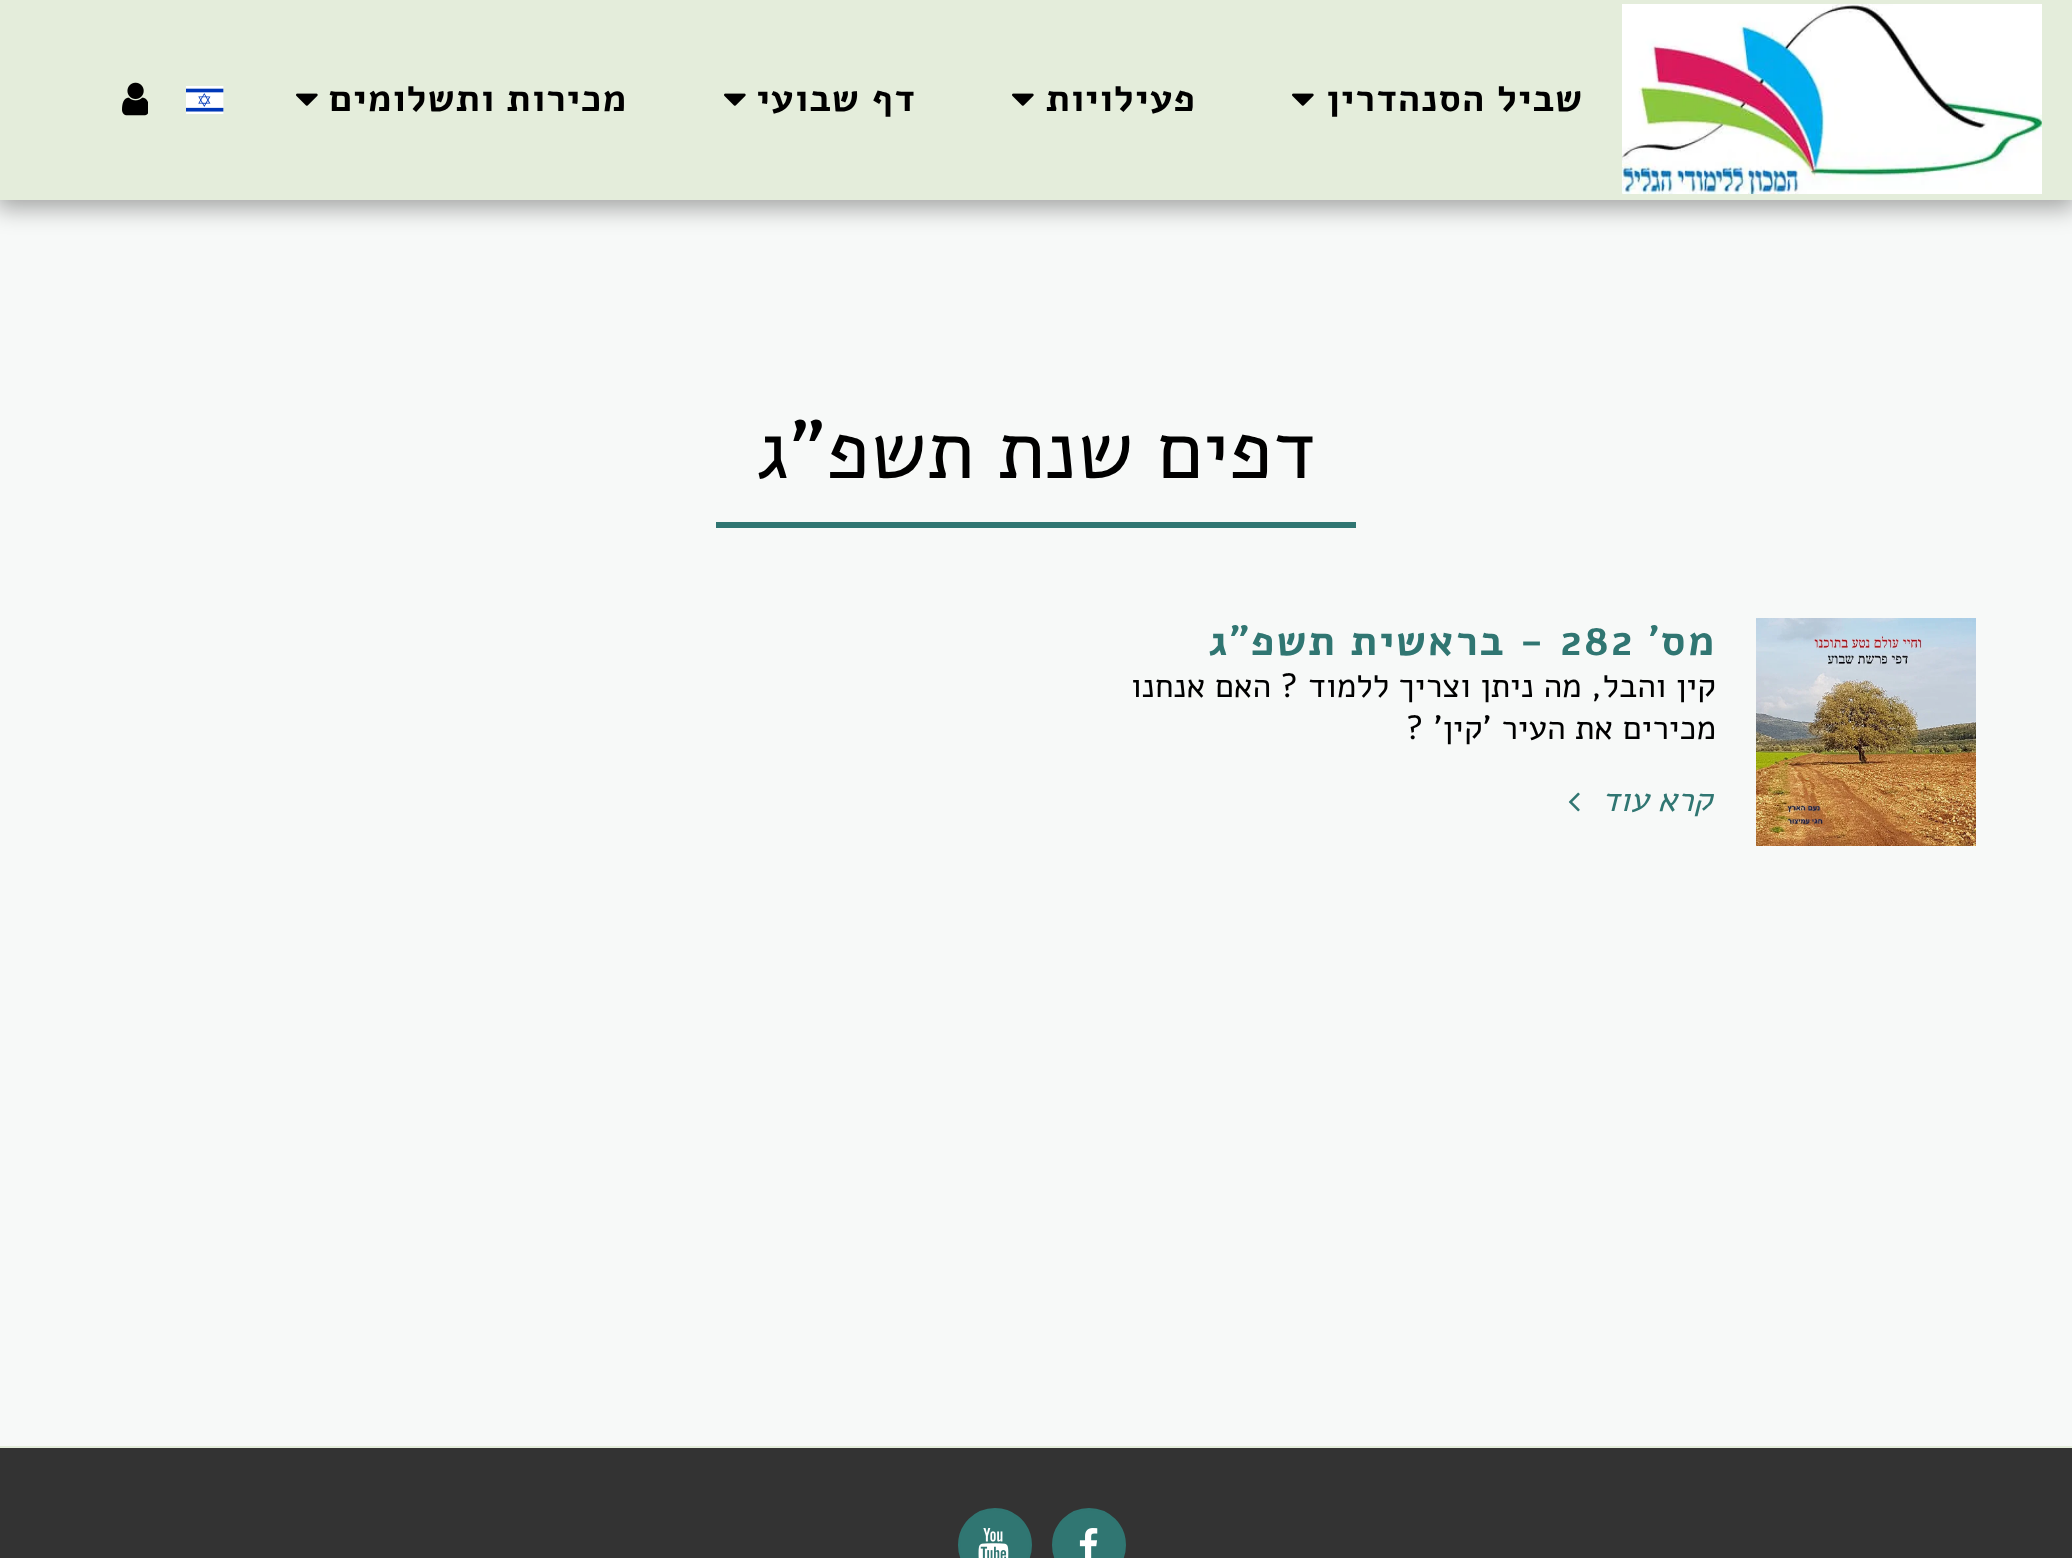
<svg xmlns="http://www.w3.org/2000/svg" width="2072" height="1558" viewBox="0 0 2072 1558">
  <style>
    .t1 { font: bold 38px Alef; letter-spacing: 1px; direction: rtl; fill: #000; }
    .t2 { font: 82px Alef; direction: rtl; fill: #000; }
    .t3 { font: bold 42px Alef; letter-spacing: 2px; direction: rtl; fill: #307672; }
    .t4 { font: bold 42px Alef; letter-spacing: 2px; fill: #307672; }
    .t5 { font: 33.6px Alef; direction: rtl; fill: #000; }
    .t6 { font: italic 33.6px Alef; direction: rtl; fill: #307672; }
  </style>
  <rect width="100%" height="100%" fill="#f7f9f8"/>
  <rect x="-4" y="0" width="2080" height="208" fill="#00000059" filter="blur(12px)"/>
  <rect x="0" y="0" width="2072" height="200" fill="#e4eddb"/>
  <image x="1622" y="4" width="420" height="190" href="images/1.png"/>
  <text x="1583" y="111" class="t1">שביל הסנהדרין</text>
  <image x="1292" y="93" width="22" height="13" href="images/2.png"/>
  <text x="1196" y="111" class="t1">פעילויות</text>
  <image x="1012" y="93" width="22" height="13" href="images/2.png"/>
  <text x="916" y="111" class="t1">דף שבועי</text>
  <image x="724" y="93" width="22" height="13" href="images/2.png"/>
  <text x="627" y="111" class="t1">מכירות ותשלומים</text>
  <image x="296" y="93" width="22" height="13" href="images/2.png"/>
  <image x="186" y="86" width="38" height="28" href="images/3.png"/>
  <image x="122" y="82" width="26" height="34" href="images/4.png"/>
  <rect x="716" y="522" width="640" height="6" fill="#307672"/>
  <text x="1316" y="478" class="t2">דפים שנת תשפ"ג</text>
  <image x="1756" y="618" width="220" height="228" href="images/5.png"/>
  <text x="1716" y="655" class="t3">מס'</text>
  <text x="1560" y="655" class="t4">282</text>
  <text x="1546" y="655" class="t3">- בראשית תשפ"ג</text>
  <text x="1716" y="697" class="t5">קין והבל, מה ניתן וצריך ללמוד ? האם אנחנו</text>
  <text x="1716" y="739" class="t5">מכירים את העיר 'קין' ?</text>
  <text x="1712" y="811" class="t6">קרא עוד</text>
  <image x="1568" y="792" width="12" height="20" href="images/6.png"/>
  <rect x="0" y="1446" width="2072" height="2" fill="#e4eddb"/>
  <rect x="0" y="1448" width="2072" height="110" fill="#333"/>
  <circle cx="1089" cy="1545" r="36" fill="#307672" stroke="#307672" stroke-width="2"/>
  <image x="1079" y="1528" width="19" height="30" href="images/7.png"/>
  <circle cx="995" cy="1545" r="36" fill="#307672" stroke="#307672" stroke-width="2"/>
  <image x="978" y="1528" width="31" height="30" href="images/8.png"/>
</svg>
